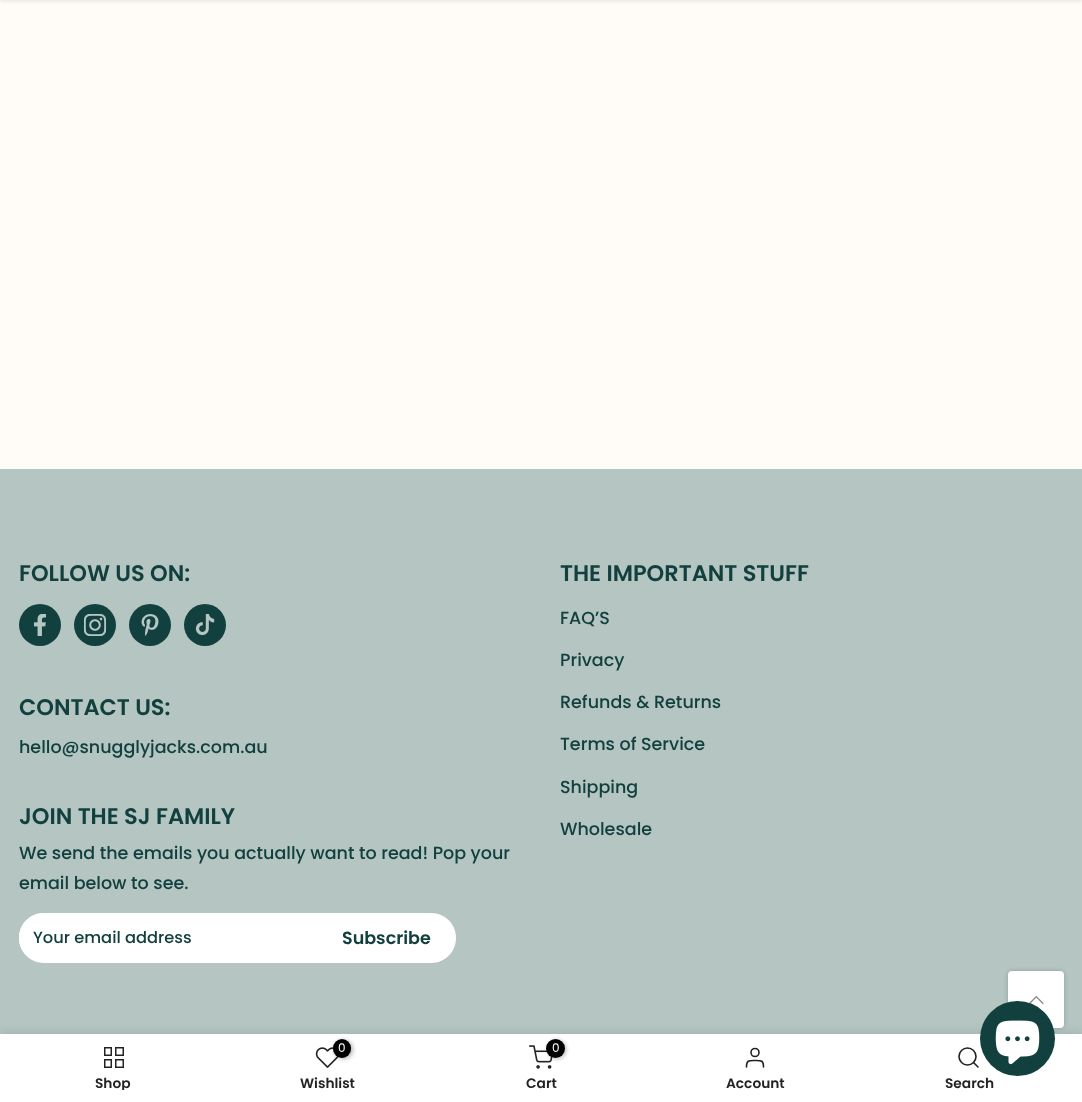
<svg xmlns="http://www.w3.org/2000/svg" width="1082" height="1102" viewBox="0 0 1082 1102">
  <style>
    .t1 { font: 600 22.5px Poppins; fill: #12403e; }
    .t2 { font: 500 17.5px Poppins; fill: #12403e; }
    .t3 { font: 500 16.25px Poppins; fill: #12403e; }
    .t4 { font: 600 17.5px Poppins; fill: #12403e; }
    .t5 { font: 600 13.75px Poppins; fill: #222; }
    .t6 { font: 12px Poppins; fill: #fff; }
  </style>
  <defs>
    <clipPath id="clip1"><rect x="19" y="1076" width="189" height="14"/></clipPath>
  </defs>
  <rect width="100%" height="100%" fill="#fffcf7"/>
  <rect x="0" y="-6" width="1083" height="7" fill="#0000001a" filter="blur(2px)"/>
  <rect x="0" y="469" width="1082" height="565" fill="#b4c5c2"/>
  <text x="19" y="581" class="t1">FOLLOW US ON:</text>
  <circle cx="40" cy="625" r="21" fill="#12403e"/>
  <image x="34" y="614" width="12" height="22" href="images/1.png"/>
  <circle cx="95" cy="625" r="21" fill="#12403e"/>
  <image x="84" y="614" width="22" height="22" href="images/2.png"/>
  <circle cx="150" cy="625" r="21" fill="#12403e"/>
  <image x="141" y="614" width="18" height="22" href="images/3.png"/>
  <circle cx="205" cy="625" r="21" fill="#12403e"/>
  <image x="195" y="614" width="20" height="22" href="images/4.png"/>
  <text x="19" y="715" class="t1">CONTACT US:</text>
  <text x="19" y="753" class="t2">hello@snugglyjacks.com.au</text>
  <text x="19" y="824" class="t1">JOIN THE SJ FAMILY</text>
  <text x="19" y="859" class="t2">We send the emails you actually want to read! Pop your</text>
  <text x="19" y="889" class="t2">email below to see.</text>
  <path d="M44 913H318V963H44C30 963 19 952 19 938C19 924 30 913 44 913Z" fill="#fff"/>
  <path d="M44 914H318V913H44C30 913 19 924 19 938C19 951 30 962 44 962H318V961H44C31 961 20 951 20 938C20 924 31 914 44 914Z" fill="#fff"/>
  <text x="33" y="943" class="t3">Your email address</text>
  <path d="M318 913H431C445 913 456 924 456 938C456 952 445 963 431 963H318Z" fill="#fff"/>
  <text x="342" y="944" class="t4">Subscribe</text>
  <text x="560" y="581" class="t1">THE IMPORTANT STUFF</text>
  <text x="560" y="624" class="t2">FAQ’S</text>
  <text x="560" y="666" class="t2">Privacy</text>
  <text x="560" y="708" class="t2">Refunds &amp; Returns</text>
  <text x="560" y="750" class="t2">Terms of Service</text>
  <text x="560" y="793" class="t2">Shipping</text>
  <text x="560" y="835" class="t2">Wholesale</text>
  <rect x="0" y="1034" width="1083" height="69" fill="#0000001f" filter="blur(5.5px)"/>
  <rect x="0" y="1034" width="1082" height="68" fill="#fff"/>
  <rect x="1008" y="971" width="56" height="57" rx="4" fill="#00000033" filter="blur(2px)"/>
  <rect x="1008" y="971" width="56" height="57" rx="4" fill="#fff"/>
  <image x="1029" y="995" width="15" height="10" href="images/5.png"/>
  <rect x="104.75" y="1047.75" width="6.5" height="7.5" fill="none" stroke="#222" stroke-width="1.5"/>
  <rect x="115.75" y="1047.75" width="7.5" height="7.5" fill="none" stroke="#222" stroke-width="1.5"/>
  <rect x="104.75" y="1059.75" width="6.5" height="7.5" fill="none" stroke="#222" stroke-width="1.5"/>
  <rect x="115.75" y="1059.75" width="7.5" height="7.5" fill="none" stroke="#222" stroke-width="1.5"/>
  <g clip-path="url(#clip1)">
    <text x="95" y="1088" class="t5">Shop</text>
  </g>
  <image x="315" y="1047" width="24" height="21" href="images/6.png"/>
  <rect x="334" y="1040" width="19" height="19" rx="9.5" fill="#0000004d" filter="blur(2px)"/>
  <rect x="333" y="1039" width="18" height="19" rx="9" fill="#000"/>
  <text x="338" y="1052" class="t6">0</text>
  <text x="300" y="1088" class="t5">Wishlist</text>
  <image x="529" y="1045" width="24" height="24" href="images/7.png"/>
  <rect x="548" y="1040" width="18" height="19" rx="9" fill="#0000004d" filter="blur(2px)"/>
  <circle cx="555.5" cy="1048.5" r="9.5" fill="#000"/>
  <text x="552" y="1052" class="t6">0</text>
  <text x="526" y="1088" class="t5">Cart</text>
  <circle cx="755" cy="1052.5" r="4" fill="none" stroke="#222" stroke-width="1.6"/>
  <path d="M763.5 1067C763.5 1060 761 1060.5 755 1060.5C749 1060.5 746.5 1060 746.5 1067" fill="none" stroke="#222" stroke-width="1.6" stroke-linecap="round" stroke-linejoin="round"/>
  <text x="726" y="1088" class="t5">Account</text>
  <circle cx="967.5" cy="1056.5" r="8.5" fill="none" stroke="#222" stroke-width="1.6"/>
  <path d="M978 1067L973.5 1062.5" fill="none" stroke="#222" stroke-width="1.6" stroke-linecap="round" stroke-linejoin="round"/>
  <text x="945" y="1088" class="t5">Search</text>
  <circle cx="1017.5" cy="1038.5" r="37.5" fill="#12403e"/>
  <image x="995" y="1020" width="45" height="45" href="images/8.png"/>
</svg>
